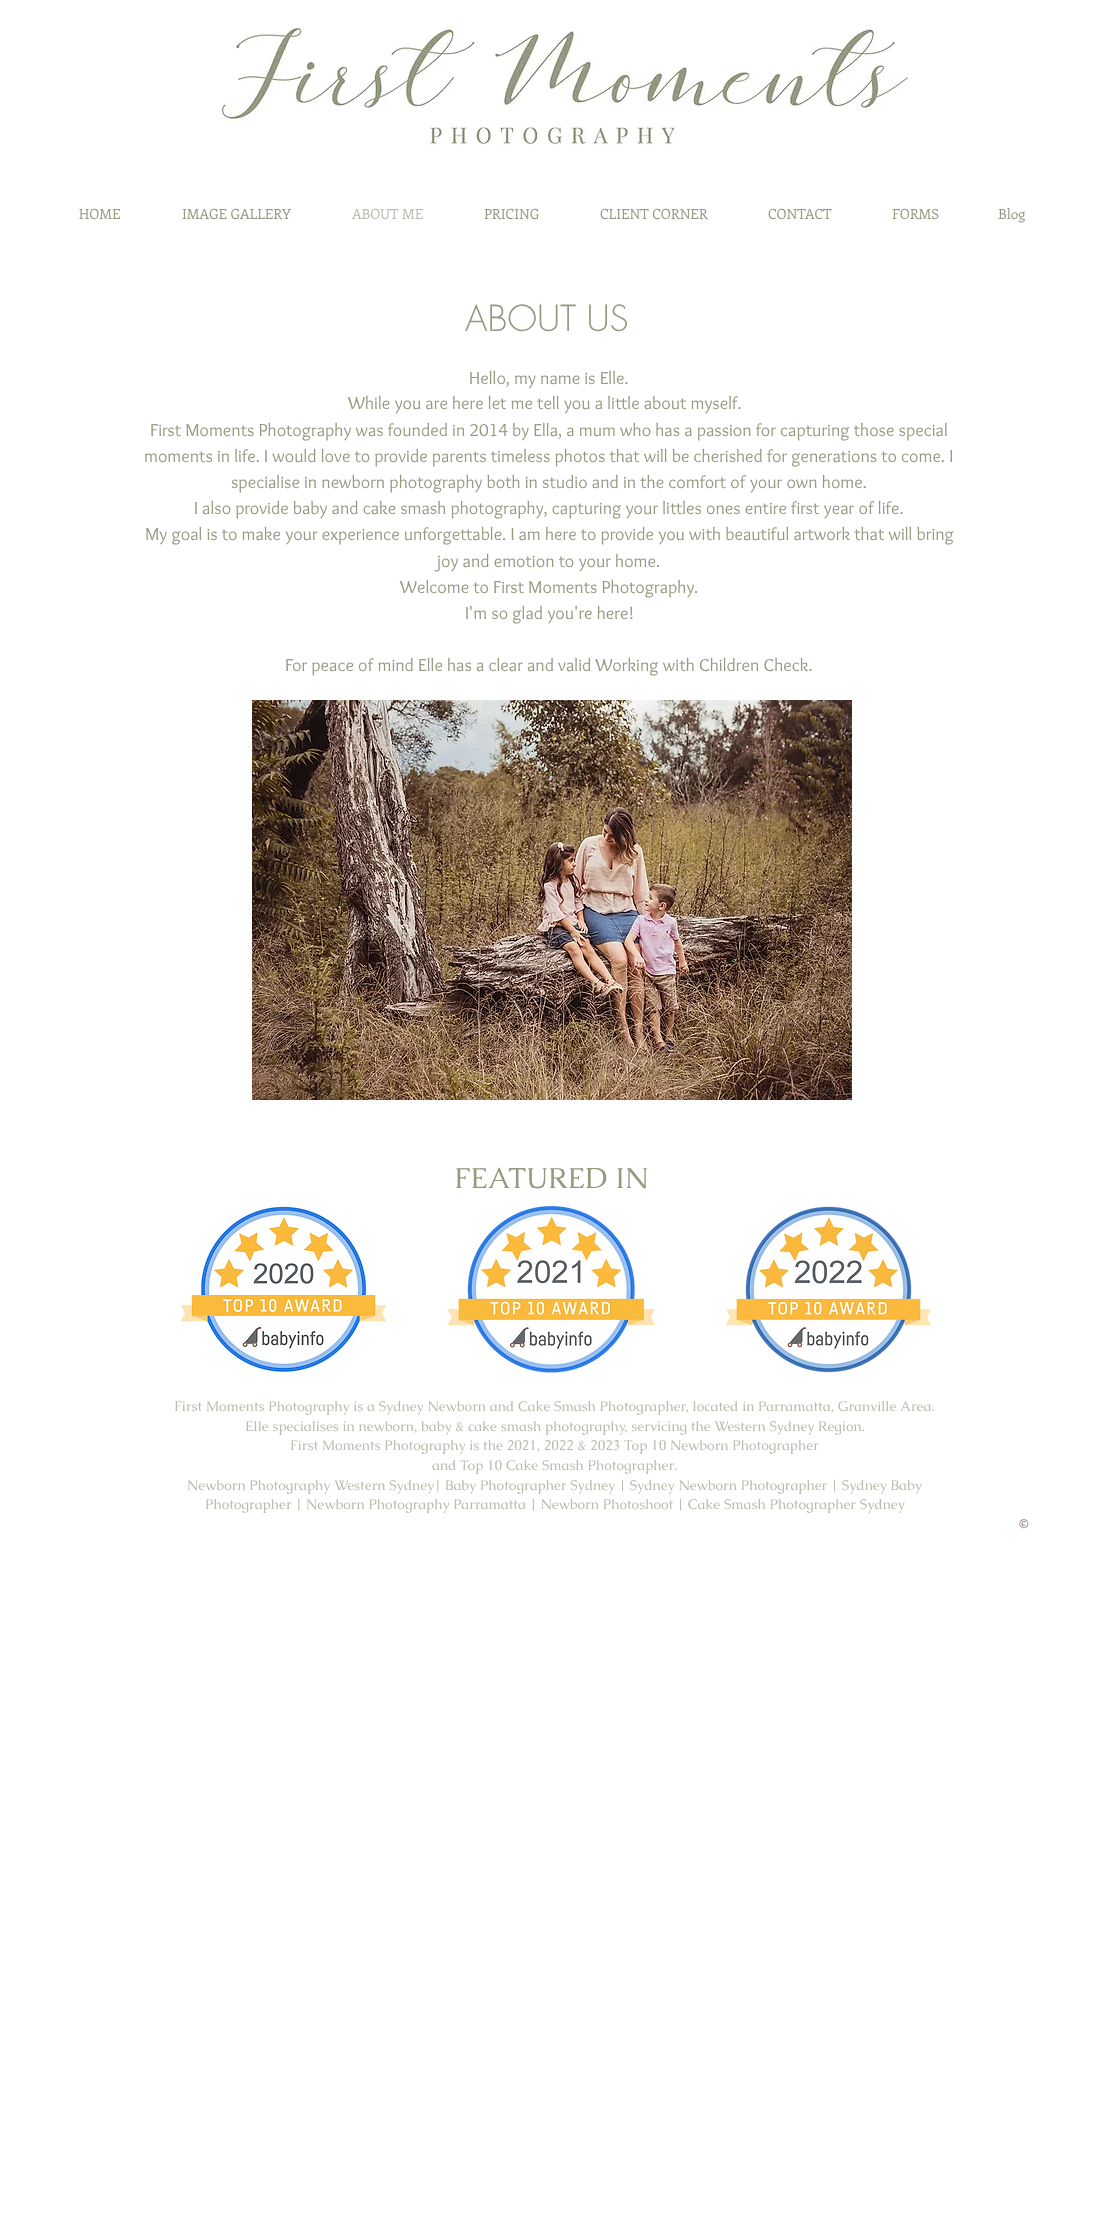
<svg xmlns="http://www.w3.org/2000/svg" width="1103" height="2234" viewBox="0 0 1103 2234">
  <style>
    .t1 { font: 14px Enriqueta; fill: #939a80; }
    .t2 { font: 14px Enriqueta; fill: #b7bcac; }
    .t3 { font: 300 35px futura; fill: #939a80; }
    .t4 { font: 18px Overlock; fill: #939a80; }
    .t5 { font: 29px Caudex; fill: #939a80; }
    .t6 { font: 14px Caudex; fill: #b7bcac; }
    .t7 { font: 12px Enriqueta; fill: #83736a; }
  </style>
  <rect width="100%" height="100%" fill="#fff"/>
  <image x="221" y="27" width="688" height="120" href="images/1.png"/>
  <text x="79" y="219" class="t1">HOME</text>
  <text x="182" y="219" class="t1">IMAGE GALLERY</text>
  <text x="352" y="219" class="t2">ABOUT ME</text>
  <text x="484" y="219" class="t1">PRICING</text>
  <text x="600" y="219" class="t1">CLIENT CORNER</text>
  <text x="768" y="219" class="t1">CONTACT</text>
  <text x="892" y="219" class="t1">FORMS</text>
  <text x="998" y="219" class="t1">Blog</text>
  <text x="465" y="331" class="t3">ABOUT US</text>
  <text x="469" y="384" class="t4">Hello, my name is Elle.</text>
  <text x="348" y="409" class="t4">While you are here let me tell you a little about myself.</text>
  <text x="150" y="436" class="t4">First Moments Photography was founded in 2014 by Ella, a mum who has a passion for capturing those special</text>
  <text x="144" y="462" class="t4">moments in life. I would love to provide parents timeless photos that will be cherished for generations to come. I</text>
  <text x="231" y="488" class="t4">specialise in newborn photography both in studio and in the comfort of your own home.</text>
  <text x="194" y="514" class="t4">I also provide baby and cake smash photography, capturing your littles ones entire first year of life.</text>
  <text x="145" y="540" class="t4">My goal is to make your experience unforgettable. I am here to provide you with beautiful artwork that will bring</text>
  <text x="437" y="567" class="t4">joy and emotion to your home.</text>
  <text x="400" y="593" class="t4">Welcome to First Moments Photography.</text>
  <text x="465" y="619" class="t4">I'm so glad you're here!</text>
  <text x="285" y="671" class="t4">For peace of mind Elle has a clear and valid Working with Children Check.</text>
  <image x="252" y="700" width="600" height="400" href="images/2.png"/>
  <text x="454" y="1188" class="t5">FEATURED IN</text>
  <image x="181" y="1206" width="205" height="166" href="images/3.png"/>
  <image x="447" y="1205" width="208" height="168" href="images/4.png"/>
  <image x="725" y="1206" width="207" height="167" href="images/5.png"/>
  <text x="174" y="1411" class="t6">First Moments Photography is a Sydney Newborn and Cake Smash Photographer, located in Parramatta, Granville Area.</text>
  <text x="245" y="1431" class="t6">Elle specialises in newborn, baby &amp; cake smash photography, servicing the Western Sydney Region.</text>
  <text x="290" y="1450" class="t6">First Moments Photography is the 2021, 2022 &amp; 2023 Top 10 Newborn Photographer</text>
  <text x="432" y="1470" class="t6">and</text>
  <text x="460" y="1470" class="t6">Top 10 Cake Smash Photographer</text>
  <text x="674" y="1470" class="t6">.</text>
  <text x="187" y="1490" class="t6">Newborn Photography Western Sydney| Baby Photographer Sydney | Sydney Newborn Photographer | Sydney Baby</text>
  <text x="205" y="1509" class="t6">Photographer | Newborn Photography Parramatta | Newborn Photoshoot | Cake Smash Photographer Sydney</text>
  <text x="1019" y="1528" class="t7">©</text>
</svg>
